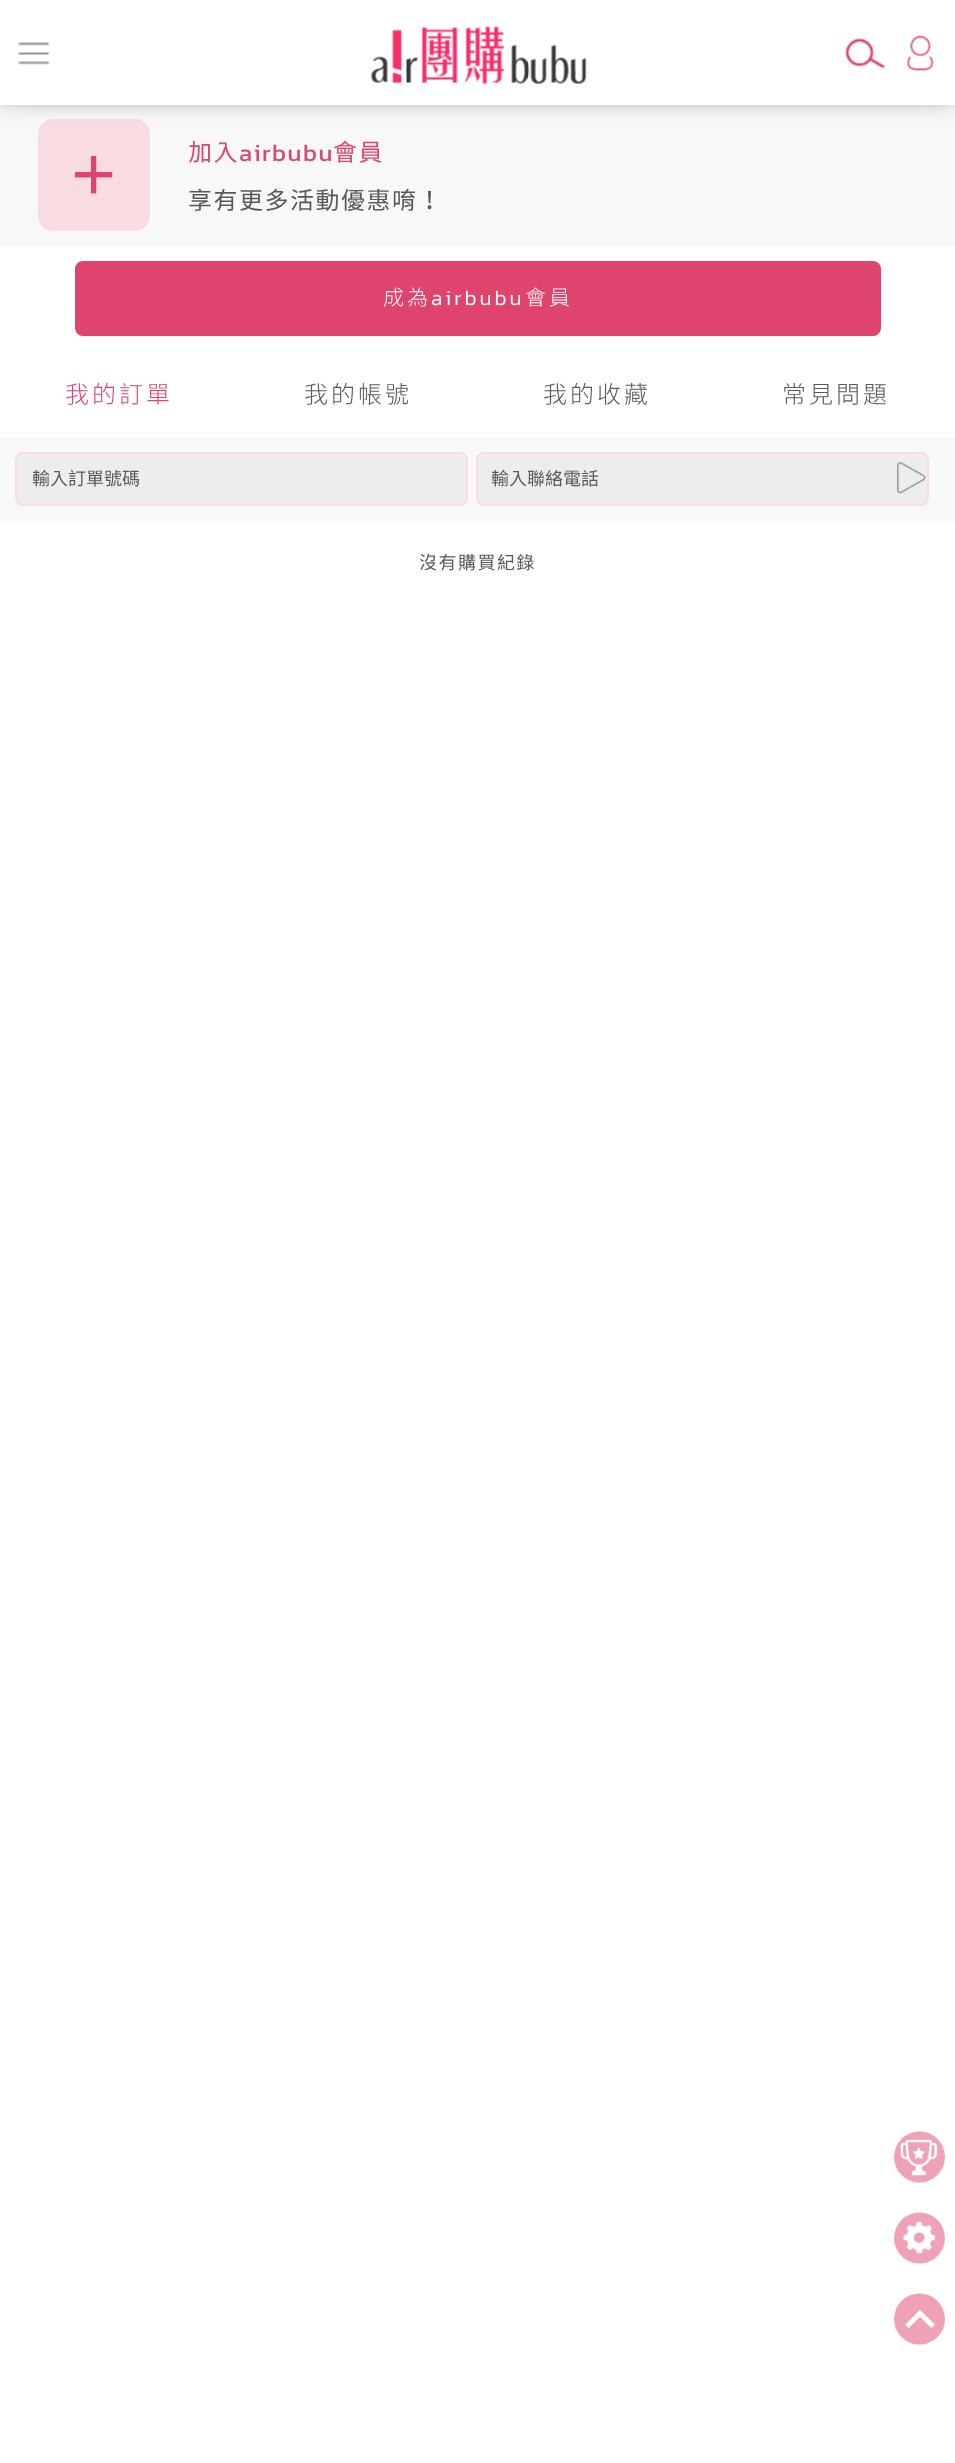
<svg xmlns="http://www.w3.org/2000/svg" width="955" height="2463" viewBox="0 0 955 2463">
  <style>
    .t1 { font: 24px Noto Sans TC; letter-spacing: 1.5px; fill: #df446c; }
    .t2 { font: 24px Kanit; letter-spacing: 1.5px; fill: #df446c; }
    .t3 { font: 24px Noto Sans TC; letter-spacing: 1.5px; fill: #585858; }
    .t4 { font: 300 21px Noto Sans TC; letter-spacing: 3px; fill: #fff; }
    .t5 { font: 300 21px Kanit; letter-spacing: 3px; fill: #fff; }
    .t6 { font: 300 24px Noto Sans TC; letter-spacing: 3px; fill: #df446c; }
    .t7 { font: 300 24px Noto Sans TC; letter-spacing: 3px; fill: #585858; }
    .t8 { font: 18px Noto Sans TC; fill: #585858; }
    .t9 { font: 18px Noto Sans TC; letter-spacing: 1.5px; fill: #585858; }
  </style>
  <rect width="100%" height="100%" fill="#fff"/>
  <rect x="0" y="105" width="955" height="141" fill="#f8f8f8"/>
  <rect x="38" y="119" width="112" height="112" rx="15" fill="#f9dce1"/>
  <rect x="0" y="-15" width="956" height="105" fill="#000000cc" filter="blur(15px)"/>
  <rect x="0" y="0" width="955" height="105" fill="#fff"/>
  <image x="18" y="42" width="32" height="23" href="images/1.png"/>
  <image x="370" y="26" width="217" height="59" href="images/2.png"/>
  <image x="845" y="38" width="40" height="31" href="images/3.png"/>
  <image x="907" y="35" width="27" height="36" href="images/4.png"/>
  <image x="75" y="156" width="38" height="38" href="images/5.png"/>
  <text x="188" y="161" class="t1">加入</text>
  <text x="239" y="161" class="t2">airbubu</text>
  <text x="333" y="161" class="t1">會員</text>
  <text x="188" y="209" class="t3">享有更多活動優惠唷！</text>
  <rect x="75" y="261" width="806" height="75" rx="8" fill="#df446c"/>
  <text x="383" y="305" class="t4">成為</text>
  <text x="431" y="305" class="t5">airbubu</text>
  <text x="525" y="305" class="t4">會員</text>
  <text x="65" y="403" class="t6">我的訂單</text>
  <text x="304" y="403" class="t7">我的帳號</text>
  <text x="543" y="403" class="t7">我的收藏</text>
  <text x="782" y="403" class="t7">常見問題</text>
  <rect x="0" y="437" width="955" height="84" fill="#f8f8f8"/>
  <rect x="16" y="453" width="451" height="52" rx="7" fill="#ededed" stroke="#f9dce1" stroke-width="2"/>
  <text x="32" y="485" class="t8">輸入訂單號碼</text>
  <rect x="477" y="453" width="451" height="52" rx="7" fill="#ededed" stroke="#f9dce1" stroke-width="2"/>
  <text x="491" y="485" class="t8">輸入聯絡電話</text>
  <image x="897" y="462" width="29" height="32" href="images/6.png"/>
  <text x="419" y="569" class="t9">沒有購買紀錄</text>
  <image x="894" y="2131" width="51" height="52" href="images/7.png"/>
  <image x="894" y="2212" width="51" height="52" href="images/8.png"/>
  <image x="894" y="2293" width="51" height="52" href="images/9.png"/>
</svg>
